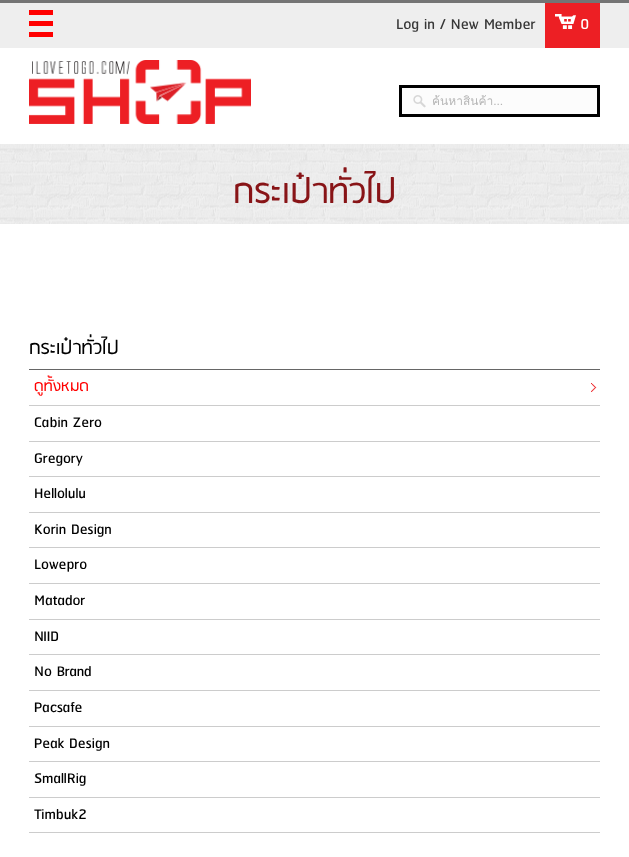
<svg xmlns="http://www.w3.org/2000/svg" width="629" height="857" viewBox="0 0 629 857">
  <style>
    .t1 { font: 18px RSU; fill: #383838; }
    .t2 { font: 18px RSU; fill: #fff; }
    .t3 { font: 12px Loma; fill: #b6b6b6; }
    .t4 { font: 40px RSU; fill: #881417; }
    .t5 { font: 22px RSU; fill: #000; }
    .t6 { font: 17.5px RSU; fill: #f00; }
    .t7 { font: 17.5px RSU; fill: #000; }
  </style>
  <defs>
    <clipPath id="clip1"><rect x="432" y="91" width="155" height="19"/></clipPath>
  </defs>
  <rect width="100%" height="100%" fill="#fff"/>
  <rect x="0" y="3" width="629" height="45" fill="#eee"/>
  <rect x="0" y="0" width="629" height="3" fill="#747474"/>
  <image x="29" y="10" width="24" height="27" href="images/1.png"/>
  <text x="396" y="29" class="t1">Log in / New Member</text>
  <rect x="545" y="3" width="55" height="45" fill="#ed1f24"/>
  <image x="555" y="14" width="21" height="15" href="images/2.png"/>
  <text x="580" y="29" class="t2">0</text>
  <image x="29" y="60" width="222" height="64" href="images/3.png"/>
  <rect x="402" y="88" width="195" height="26" fill="#fcfcfc"/>
  <image x="413" y="95" width="13" height="13" href="images/4.png"/>
  <rect x="400.5" y="86.5" width="198" height="29" fill="none" stroke="#000" stroke-width="3"/>
  <g clip-path="url(#clip1)">
    <text x="432" y="105" class="t3">ค้นหาสินค้า...</text>
  </g>
  <image x="0" y="144" width="629" height="80" href="images/5.png"/>
  <text x="233" y="203" class="t4">กระเป๋าทั่วไป</text>
  <rect x="29" y="369" width="571" height="1" fill="#666"/>
  <text x="29" y="354" class="t5">กระเป๋าทั่วไป</text>
  <rect x="29" y="405" width="571" height="1" fill="#ccc"/>
  <image x="591" y="383" width="6" height="9" href="images/6.png"/>
  <text x="34" y="391" class="t6">ดูทั้งหมด</text>
  <rect x="29" y="441" width="571" height="1" fill="#ccc"/>
  <text x="34" y="427" class="t7">Cabin Zero</text>
  <rect x="29" y="476" width="571" height="1" fill="#ccc"/>
  <text x="34" y="463" class="t7">Gregory</text>
  <rect x="29" y="512" width="571" height="1" fill="#ccc"/>
  <text x="34" y="498" class="t7">Hellolulu</text>
  <rect x="29" y="547" width="571" height="1" fill="#ccc"/>
  <text x="34" y="534" class="t7">Korin Design</text>
  <rect x="29" y="583" width="571" height="1" fill="#ccc"/>
  <text x="34" y="569" class="t7">Lowepro</text>
  <rect x="29" y="619" width="571" height="1" fill="#ccc"/>
  <text x="34" y="605" class="t7">Matador</text>
  <rect x="29" y="654" width="571" height="1" fill="#ccc"/>
  <text x="34" y="641" class="t7">NIID</text>
  <rect x="29" y="690" width="571" height="1" fill="#ccc"/>
  <text x="34" y="676" class="t7">No Brand</text>
  <rect x="29" y="726" width="571" height="1" fill="#ccc"/>
  <text x="34" y="712" class="t7">Pacsafe</text>
  <rect x="29" y="761" width="571" height="1" fill="#ccc"/>
  <text x="34" y="748" class="t7">Peak Design</text>
  <rect x="29" y="797" width="571" height="1" fill="#ccc"/>
  <text x="34" y="783" class="t7">SmallRig</text>
  <rect x="29" y="832" width="571" height="1" fill="#ccc"/>
  <text x="34" y="819" class="t7">Timbuk2</text>
</svg>
